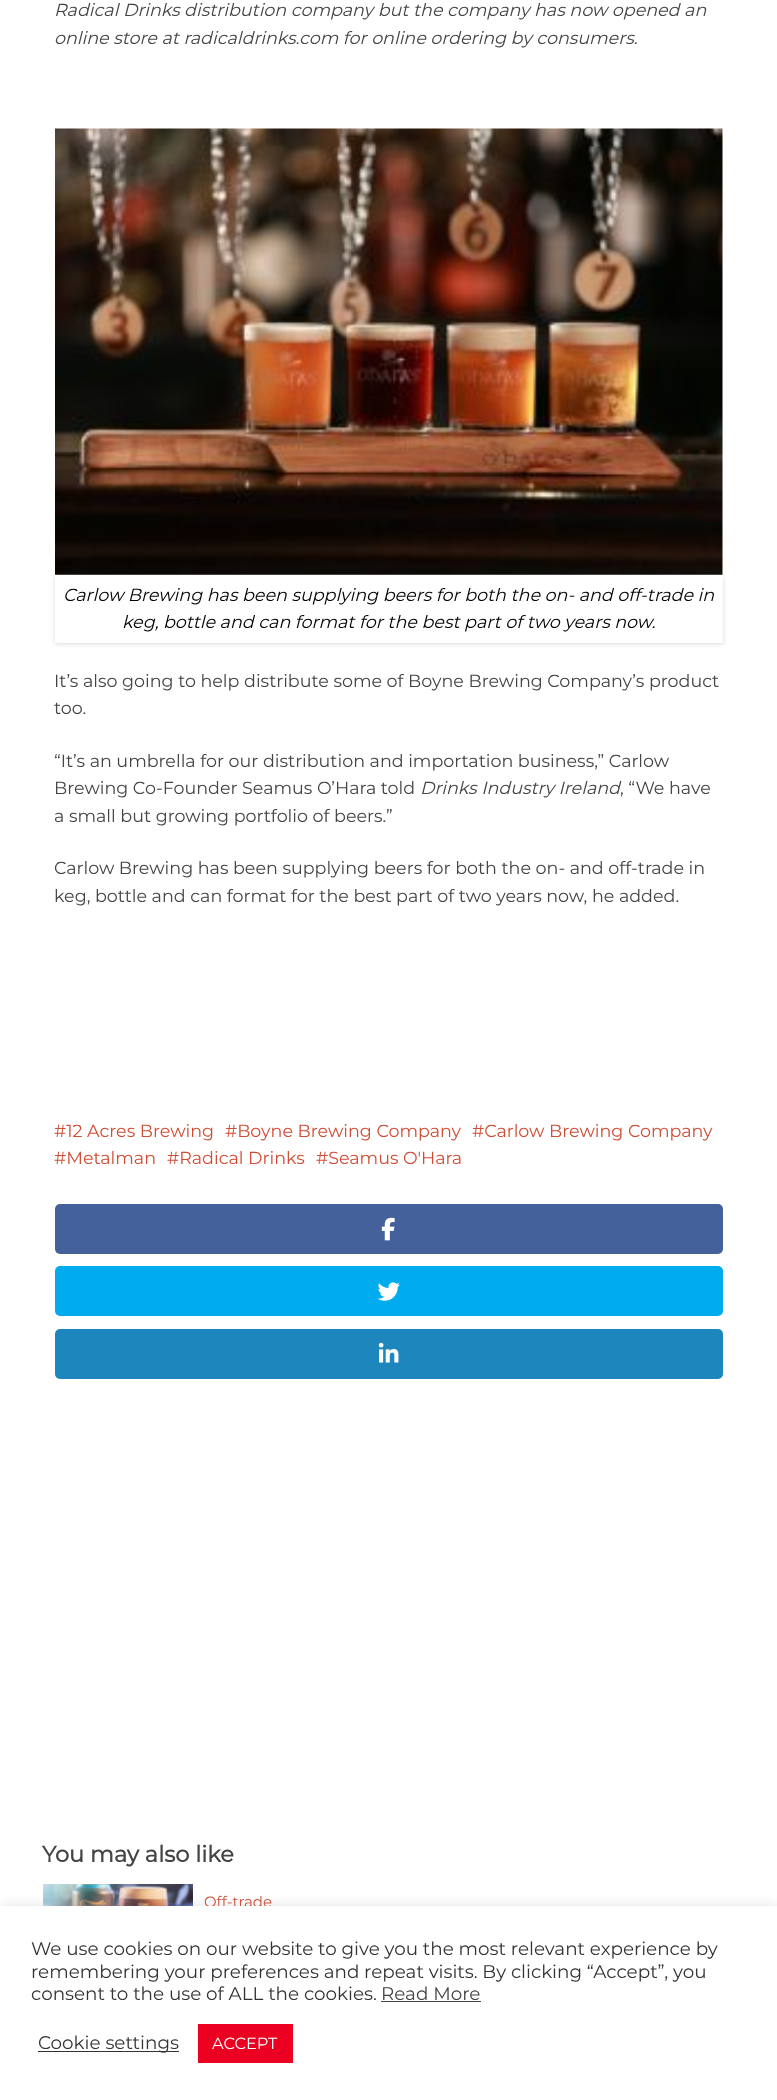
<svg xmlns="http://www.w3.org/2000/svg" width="777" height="2100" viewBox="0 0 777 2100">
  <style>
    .t1 { font: italic 100 17.5px Montserrat; fill: #444; }
    .t2 { font: italic 100 17.5px Montserrat; fill: #000; }
    .t3 { font: 100 17.5px Montserrat; fill: #444; }
    .t4 { font: 100 17.5px Montserrat; fill: #cf4d35; }
    .t5 { font: bold 22.5px Montserrat; fill: #444; }
    .t6 { font: 100 15px Montserrat; fill: #cf4d35; }
    .t7 { font: 100 18.35px Montserrat; fill: #333; }
    .t8 { font: 100 18.35px Montserrat; fill: #444; }
    .t9 { font: 100 16.25px Montserrat; fill: #fff; }
  </style>
  <defs>
    <clipPath id="clip1"><path d="M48 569H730V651H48ZM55 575H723V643H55Z" clip-rule="evenodd"/></clipPath>
  </defs>
  <rect width="100%" height="100%" fill="#fff"/>
  <text x="54" y="16" class="t1">Radical Drinks distribution company but the company has now opened an</text>
  <text x="54" y="44" class="t1">online store at radicaldrinks.com for online ordering by consumers.</text>
  <g clip-path="url(#clip1)">
    <rect x="55" y="576" width="668" height="68" fill="#00000026" filter="blur(2px)"/>
  </g>
  <image x="55" y="128" width="668" height="447" href="images/1.png"/>
  <text x="63" y="601" class="t2">Carlow Brewing has been supplying beers for both the on- and off-trade in</text>
  <text x="122" y="628" class="t2">keg, bottle and can format for the best part of two years now.</text>
  <text x="54" y="687" class="t3">It’s also going to help distribute some of Boyne Brewing Company’s product</text>
  <text x="54" y="714" class="t3">too.</text>
  <text x="54" y="767" class="t3">“It’s an umbrella for our distribution and importation business,” Carlow</text>
  <text x="54" y="794" class="t3">Brewing Co-Founder Seamus O’Hara told</text>
  <text x="420" y="794" class="t1">Drinks Industry Ireland</text>
  <text x="620" y="794" class="t3">, “We have</text>
  <text x="54" y="822" class="t3">a small but growing portfolio of beers.”</text>
  <text x="54" y="874" class="t3">Carlow Brewing has been supplying beers for both the on- and off-trade in</text>
  <text x="54" y="902" class="t3">keg, bottle and can format for the best part of two years now, he added.</text>
  <text x="54" y="1137" class="t4">#12 Acres Brewing</text>
  <text x="225" y="1137" class="t4">#Boyne Brewing Company</text>
  <text x="472" y="1137" class="t4">#Carlow Brewing Company</text>
  <text x="54" y="1164" class="t4">#Metalman</text>
  <text x="167" y="1164" class="t4">#Radical Drinks</text>
  <text x="316" y="1164" class="t4">#Seamus O'Hara</text>
  <rect x="55" y="1204" width="668" height="50" rx="5" fill="#45619c"/>
  <image x="381" y="1217" width="14" height="24" href="images/2.png"/>
  <rect x="55" y="1266" width="668" height="50" rx="5" fill="#00acee"/>
  <image x="377" y="1282" width="23" height="19" href="images/3.png"/>
  <rect x="55" y="1329" width="668" height="50" rx="5" fill="#1d87bd"/>
  <image x="378" y="1342" width="21" height="21" href="images/4.png"/>
  <text x="42" y="1862" class="t5">You may also like</text>
  <image x="43" y="1884" width="150" height="22" href="images/5.png"/>
  <text x="204" y="1907" class="t6">Off-trade</text>
  <rect x="0" y="1905" width="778" height="194" fill="#acabab4d" filter="blur(6px)"/>
  <rect x="0" y="1906" width="777" height="194" fill="#fff"/>
  <text x="31" y="1955" class="t7">We use cookies on our website to give you the most relevant experience by</text>
  <text x="31" y="1978" class="t7">remembering your preferences and repeat visits. By clicking “Accept”, you</text>
  <text x="31" y="2000" class="t7">consent to the use of ALL the cookies.</text>
  <text x="381" y="2000" class="t8">Read More</text>
  <rect x="381" y="2001" width="100" height="1" fill="#444"/>
  <rect x="38" y="2051" width="141" height="1" fill="#333"/>
  <text x="38" y="2049" class="t7">Cookie settings</text>
  <rect x="198" y="2024" width="95" height="39" fill="#ec0021"/>
  <text x="212" y="2049" class="t9">ACCEPT</text>
</svg>
